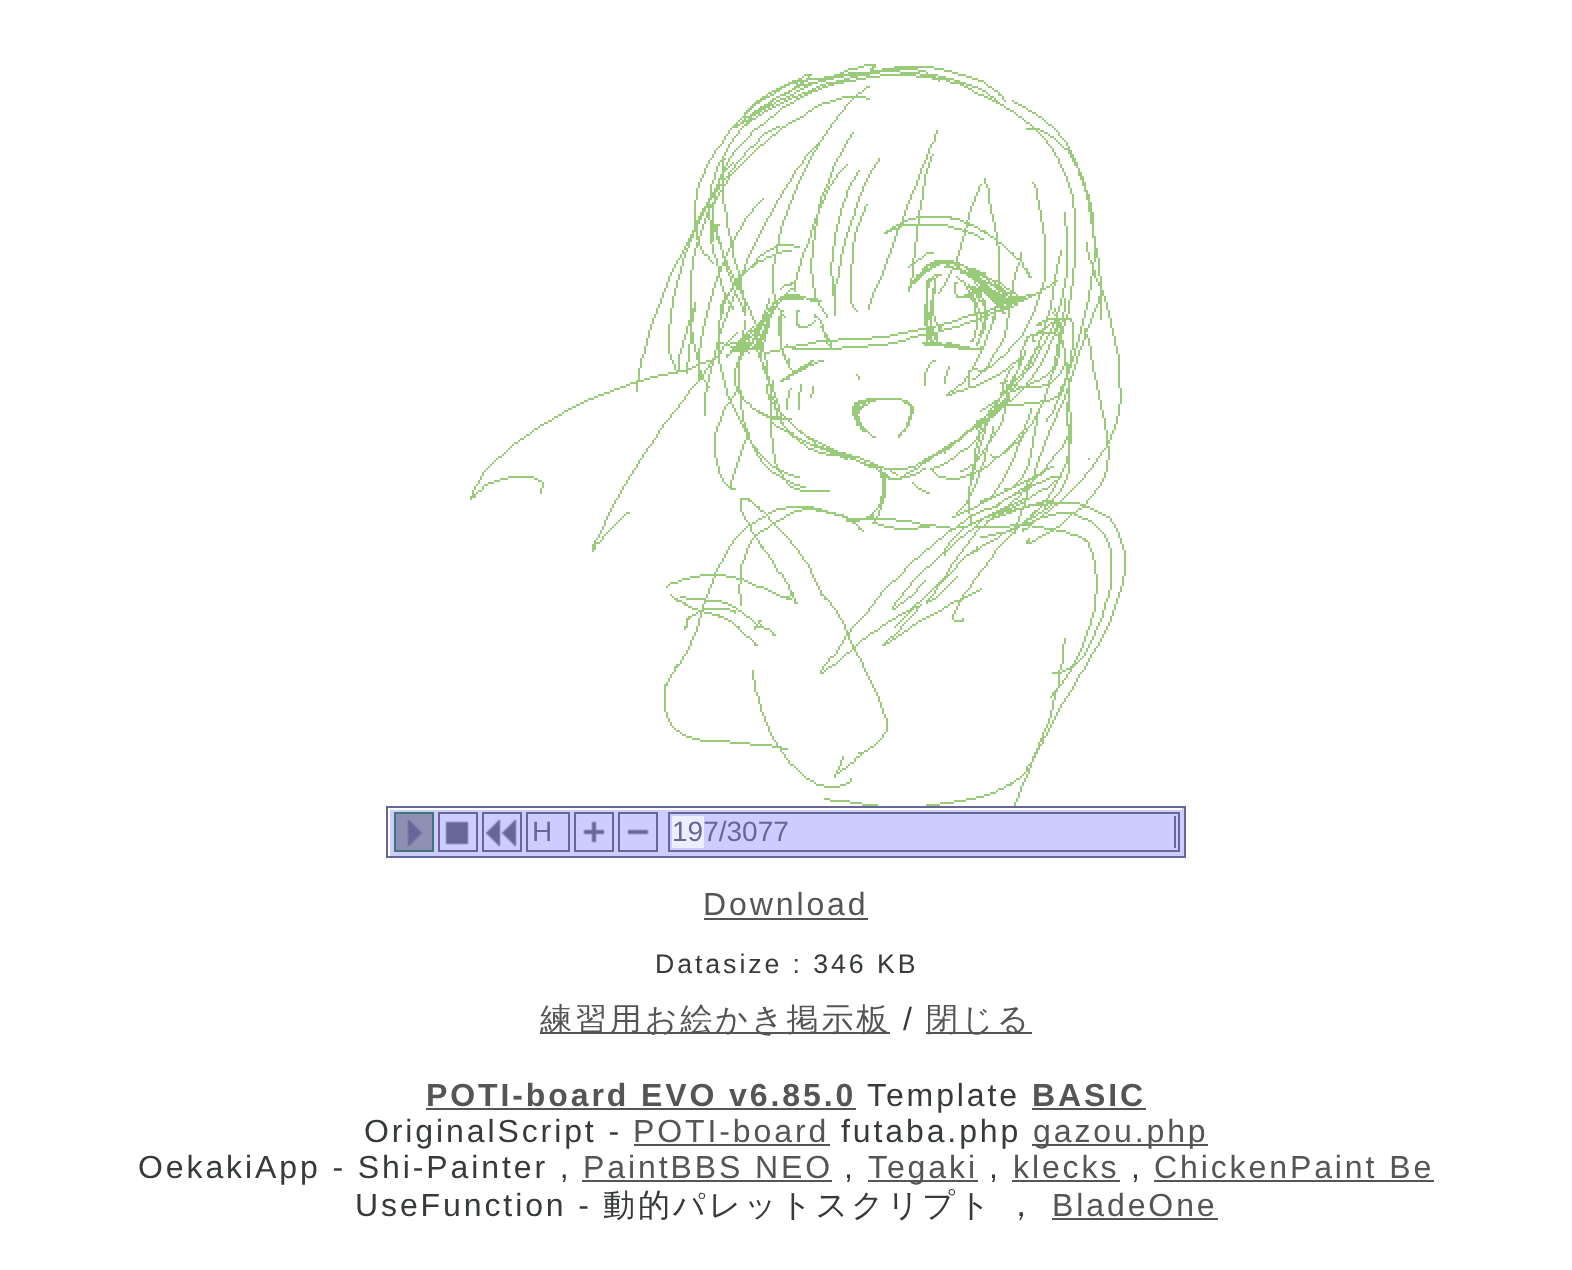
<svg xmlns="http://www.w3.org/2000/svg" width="1572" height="1270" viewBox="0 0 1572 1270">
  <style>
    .t1 { font: 28px Liberation Sans; fill: #669; }
    .t2 { font: 32px Liberation Sans; letter-spacing: 2.9px; fill: #555; }
    .t3 { font: 26.75px Liberation Sans; letter-spacing: 2.9px; fill: #363a3a; }
    .t4 { font: 500 32px WenQuanYi Zen Hei; letter-spacing: 2.9px; fill: #555; }
    .t5 { font: 32px Liberation Sans; letter-spacing: 2.9px; fill: #363a3a; }
    .t6 { font: bold 32px Liberation Sans; letter-spacing: 2.9px; fill: #555; }
    .t7 { font: 500 32px WenQuanYi Zen Hei; letter-spacing: 2.9px; fill: #363a3a; }
  </style>
  <rect width="100%" height="100%" fill="#fff"/>
  <rect x="390" y="810" width="792" height="46" fill="#ccf"/>
  <image x="470" y="64" width="656" height="742" href="images/1.png"/>
  <rect x="387" y="807" width="798" height="50" fill="none" stroke="#669" stroke-width="2"/>
  <rect x="1182" y="808" width="2" height="48" fill="#ccf"/>
  <rect x="395" y="813" width="38" height="38" fill="#8f8fb3" stroke="#407675" stroke-width="2"/>
  <image x="407" y="819" width="16" height="28" href="images/2.png"/>
  <rect x="439" y="813" width="38" height="38" fill="none" stroke="#669" stroke-width="2"/>
  <image x="445" y="821" width="24" height="24" href="images/3.png"/>
  <rect x="483" y="813" width="38" height="38" fill="none" stroke="#669" stroke-width="2"/>
  <image x="486" y="819" width="31" height="28" href="images/4.png"/>
  <rect x="527" y="813" width="42" height="38" fill="none" stroke="#669" stroke-width="2"/>
  <text x="532" y="841" class="t1">H</text>
  <rect x="575" y="813" width="38" height="38" fill="none" stroke="#669" stroke-width="2"/>
  <image x="583" y="821" width="22" height="22" href="images/5.png"/>
  <rect x="619" y="813" width="38" height="38" fill="none" stroke="#669" stroke-width="2"/>
  <image x="627" y="829" width="22" height="6" href="images/6.png"/>
  <rect x="669" y="813" width="510" height="38" fill="none" stroke="#669" stroke-width="2"/>
  <rect x="672" y="816" width="32" height="32" fill="#eef"/>
  <rect x="1174" y="816" width="2" height="32" fill="#669"/>
  <text x="672" y="841" class="t1">197/3077</text>
  <text x="703" y="915" class="t2">Download</text>
  <rect x="704" y="918" width="164" height="2" fill="#555"/>
  <text x="655" y="973" class="t3">Datasize : 346 KB</text>
  <rect x="540" y="1032" width="350" height="2" fill="#555"/>
  <text x="540" y="1030" class="t4">練習用お絵かき掲示板</text>
  <text x="903" y="1030" class="t5">/</text>
  <rect x="926" y="1032" width="106" height="2" fill="#555"/>
  <text x="926" y="1030" class="t4">閉じる</text>
  <text x="426" y="1106" class="t6">POTI-board EVO v6.85.0</text>
  <rect x="426" y="1108" width="430" height="2" fill="#555"/>
  <text x="867" y="1106" class="t5">Template</text>
  <text x="1032" y="1106" class="t6">BASIC</text>
  <rect x="1032" y="1108" width="114" height="2" fill="#555"/>
  <text x="364" y="1142" class="t5">OriginalScript -</text>
  <text x="633" y="1142" class="t2">POTI-board</text>
  <rect x="634" y="1144" width="196" height="2" fill="#555"/>
  <text x="841" y="1142" class="t5">futaba.php</text>
  <rect x="1032" y="1144" width="176" height="2" fill="#555"/>
  <text x="1033" y="1142" class="t2">gazou.php</text>
  <text x="138" y="1178" class="t5">OekakiApp - Shi-Painter ,</text>
  <text x="583" y="1178" class="t2">PaintBBS NEO</text>
  <rect x="582" y="1180" width="250" height="2" fill="#555"/>
  <text x="844" y="1178" class="t5">,</text>
  <rect x="868" y="1180" width="110" height="2" fill="#555"/>
  <text x="868" y="1178" class="t2">Tegaki</text>
  <text x="989" y="1178" class="t5">,</text>
  <text x="1013" y="1178" class="t2">klecks</text>
  <rect x="1012" y="1180" width="108" height="2" fill="#555"/>
  <text x="1131" y="1178" class="t5">,</text>
  <text x="1154" y="1178" class="t2">ChickenPaint Be</text>
  <rect x="1154" y="1180" width="280" height="2" fill="#555"/>
  <text x="355" y="1216" class="t5">UseFunction -</text>
  <text x="603" y="1216" class="t7">動的パレットスクリプト</text>
  <text x="1005" y="1216" class="t7">，</text>
  <text x="1052" y="1216" class="t2">BladeOne</text>
  <rect x="1052" y="1218" width="166" height="2" fill="#555"/>
</svg>
